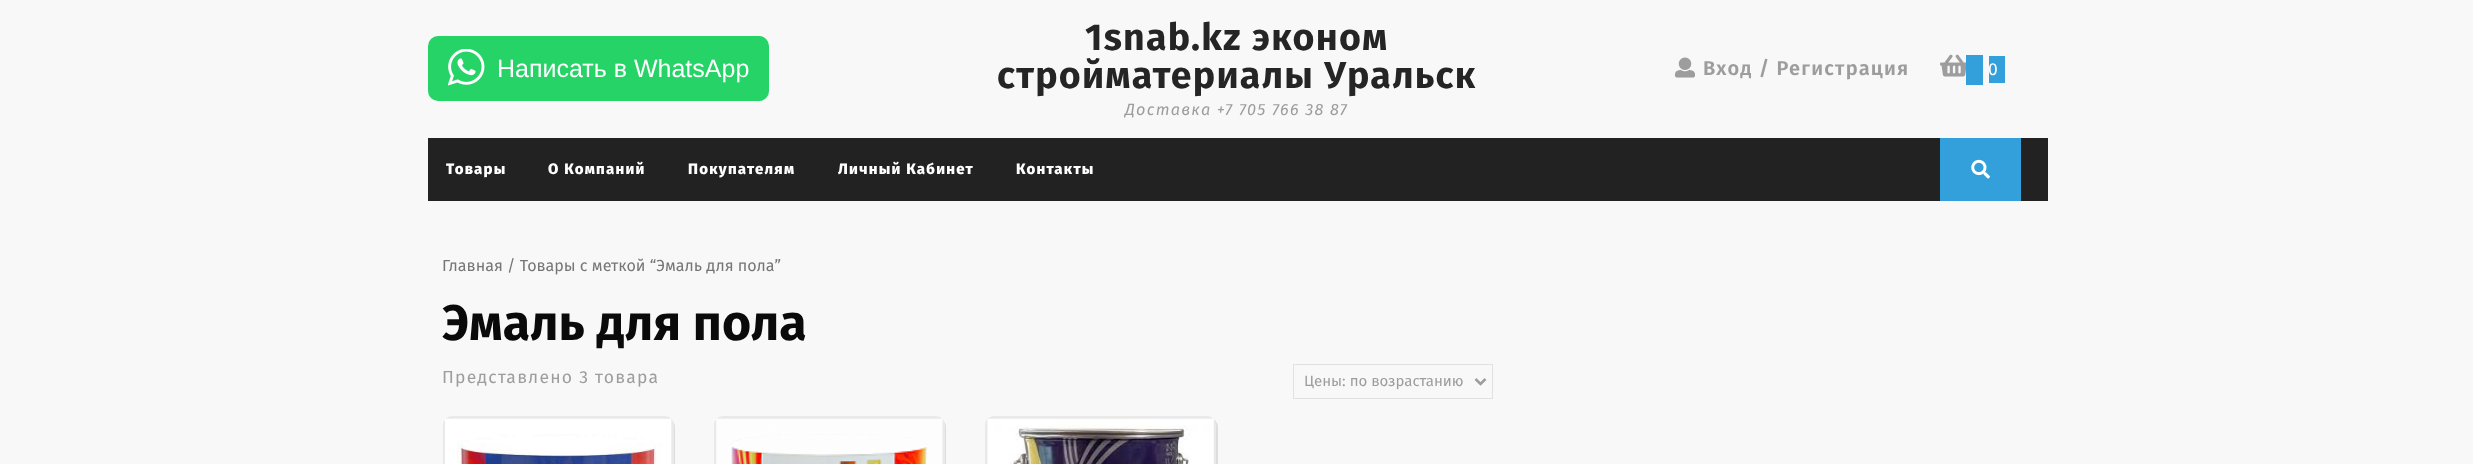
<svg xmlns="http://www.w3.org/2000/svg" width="2473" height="464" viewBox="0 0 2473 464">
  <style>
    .t1 { font: 25px Liberation Sans; fill: #fff; }
    .t2 { font: bold 37.5px Fira Sans; letter-spacing: 1.25px; fill: #252525; }
    .t3 { font: italic 16.25px Fira Sans; letter-spacing: 1.25px; fill: #9d9d9d; }
    .t4 { font: 600 20px Fira Sans; letter-spacing: 1.25px; fill: #9d9d9d; }
    .t5 { font: 17.5px Fira Sans; fill: #fff; }
    .t6 { font: 800 15px Fira Sans; letter-spacing: 1.25px; fill: #fff; }
    .t7 { font: 16.1px Fira Sans; fill: #767676; }
    .t8 { font: bold 50px Fira Sans; fill: #0a0a0a; }
    .t9 { font: 17.5px Fira Sans; letter-spacing: 1.25px; fill: #9d9d9d; }
    .t10 { font: 15px Fira Sans; fill: #9d9d9d; }
  </style>
  <rect width="100%" height="100%" fill="#f8f8f8"/>
  <rect x="428" y="36" width="341" height="65" rx="10" fill="#25d366"/>
  <image x="448" y="49" width="37" height="37" href="images/1.png"/>
  <text x="497" y="77" class="t1">Написать в WhatsApp</text>
  <text x="1085" y="50" class="t2">1snab.kz эконом</text>
  <text x="997" y="88" class="t2">стройматериалы Уральск</text>
  <text x="1125" y="115" class="t3">Доставка +7 705 766 38 87</text>
  <image x="1675" y="57" width="20" height="21" href="images/2.png"/>
  <text x="1703" y="75" class="t4">Вход / Регистрация</text>
  <image x="1940" y="54" width="26" height="23" href="images/3.png"/>
  <rect x="1989" y="56" width="16" height="27" fill="#33a0dc"/>
  <text x="1988" y="75" class="t5">0</text>
  <rect x="1966" y="55" width="17" height="30" fill="#33a0dc"/>
  <rect x="428" y="138" width="1620" height="63" fill="#222"/>
  <text x="446" y="174" class="t6">Товары</text>
  <text x="548" y="174" class="t6">О Компаний</text>
  <text x="688" y="174" class="t6">Покупателям</text>
  <text x="838" y="174" class="t6">Личный Кабинет</text>
  <text x="1016" y="174" class="t6">Контакты</text>
  <rect x="1940" y="138" width="81" height="63" fill="#33a0dc"/>
  <image x="1971" y="159" width="19" height="20" href="images/4.png"/>
  <text x="442" y="271" class="t7">Главная / Товары с меткой “Эмаль для пола”</text>
  <text x="442" y="340" class="t8">Эмаль для пола</text>
  <text x="442" y="383" class="t9">Представлено 3 товара</text>
  <rect x="1293.5" y="364.5" width="199" height="34" fill="none" stroke="#e1e1e1"/>
  <path d="M1475.5 379L1480.5 384L1485.5 379" fill="none" stroke="#9d9d9d" stroke-width="2.5"/>
  <text x="1304" y="386" class="t10">Цены: по возрастанию</text>
  <rect x="444" y="418" width="231" height="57" rx="9" fill="#ddd" filter="blur(0.5px)"/>
  <rect x="444.5" y="417.5" width="228" height="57" rx="7.5" fill="none" stroke="#e9e9e9" stroke-width="3"/>
  <image x="445" y="418" width="227" height="46" href="images/5.png"/>
  <rect x="715" y="418" width="231" height="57" rx="9" fill="#ddd" filter="blur(0.5px)"/>
  <rect x="715.5" y="417.5" width="228" height="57" rx="7.5" fill="none" stroke="#e9e9e9" stroke-width="3"/>
  <image x="716" y="418" width="227" height="46" href="images/6.png"/>
  <rect x="986" y="418" width="232" height="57" rx="9" fill="#ddd" filter="blur(0.5px)"/>
  <rect x="986.5" y="417.5" width="228" height="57" rx="7.5" fill="none" stroke="#e9e9e9" stroke-width="3"/>
  <image x="987" y="418" width="227" height="46" href="images/7.png"/>
</svg>
